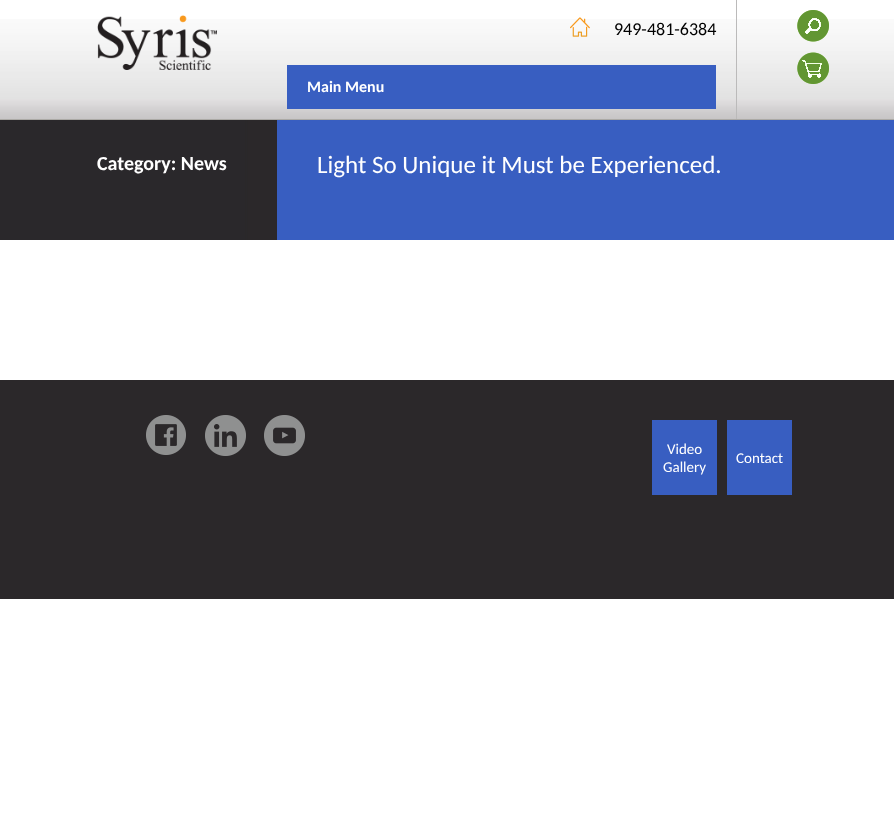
<svg xmlns="http://www.w3.org/2000/svg" width="894" height="821" viewBox="0 0 894 821">
  <style>
    .t1 { font: 18px Carlito; fill: #000; }
    .t2 { font: bold 16px Carlito; fill: #fff; }
    .t3 { font: bold 20px Carlito; fill: #fff; }
    .t4 { font: 25px Carlito; fill: #fff; }
    .t5 { font: 15px Carlito; fill: #fff; }
  </style>
  <rect width="100%" height="100%" fill="#fff"/>
  <image x="0" y="19" width="894" height="100" href="images/1.png"/>
  <rect x="0" y="119" width="894" height="1" fill="#aba9a5"/>
  <image x="97" y="15" width="120" height="55" href="images/2.png"/>
  <rect x="736" y="0" width="1" height="119" fill="#bbbaba"/>
  <image x="570" y="17" width="20" height="20" href="images/3.png"/>
  <text x="614" y="35" class="t1">949-481-6384</text>
  <rect x="287" y="65" width="429" height="44" fill="#385ec1"/>
  <text x="307" y="92" class="t2">Main Menu</text>
  <image x="797" y="10" width="32" height="32" href="images/4.png"/>
  <image x="797" y="52" width="32" height="32" href="images/5.png"/>
  <image x="0" y="120" width="894" height="120" href="images/6.png"/>
  <rect x="249" y="120" width="28" height="120" fill="#2b282a"/>
  <text x="97" y="170" class="t3">Category: News</text>
  <text x="317" y="173" class="t4">Light So Unique it Must be Experienced.</text>
  <rect x="0" y="380" width="894" height="219" fill="#2b282a"/>
  <image x="146" y="415" width="40" height="40" href="images/7.png"/>
  <image x="205" y="415" width="41" height="41" href="images/8.png"/>
  <image x="264" y="415" width="41" height="41" href="images/9.png"/>
  <rect x="652" y="420" width="65" height="75" fill="#385ec1"/>
  <text x="667" y="454" class="t5">Video</text>
  <text x="663" y="472" class="t5">Gallery</text>
  <rect x="727" y="420" width="65" height="75" fill="#385ec1"/>
  <text x="736" y="463" class="t5">Contact</text>
</svg>
